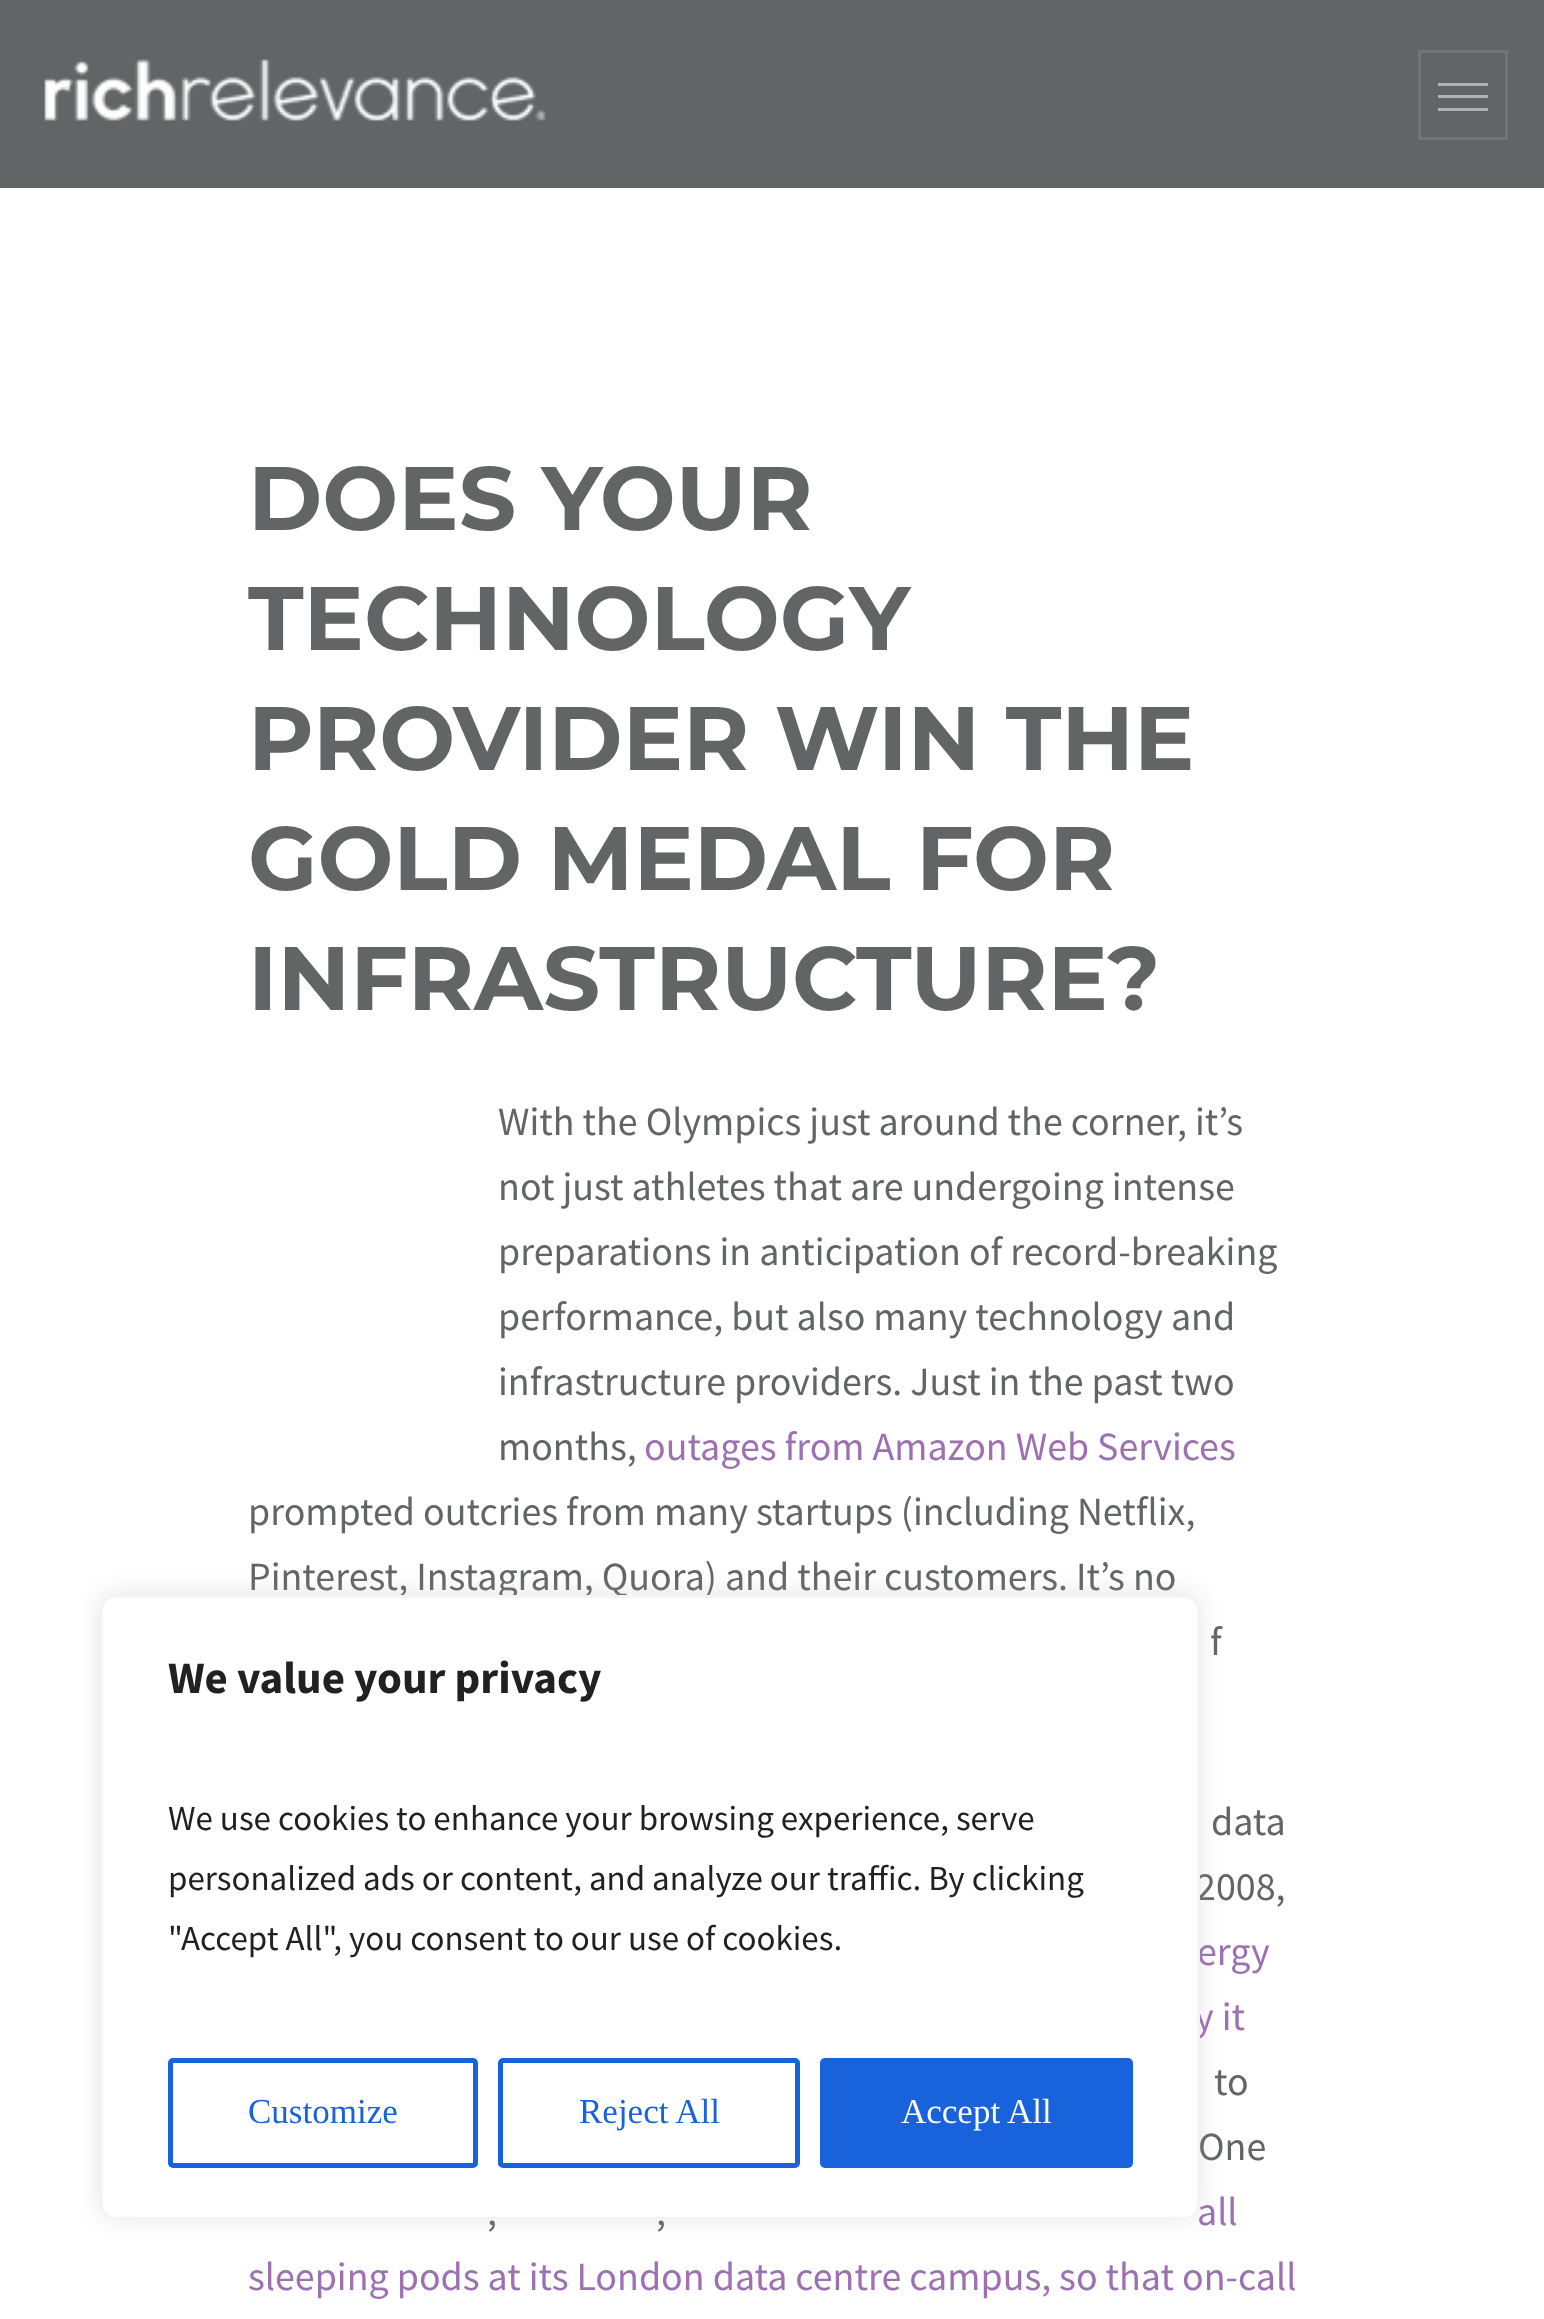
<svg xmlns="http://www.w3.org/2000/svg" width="1544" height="2319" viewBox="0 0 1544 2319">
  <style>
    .t1 { font: bold 90px Montserrat; fill: #626466; }
    .t2 { font: 40px Source Sans Pro; fill: #626466; }
    .t3 { font: 40px Source Sans Pro; fill: #9d70b1; }
    .t4 { font: bold 45px Source Sans Pro; fill: #212121; }
    .t5 { font: 35px Source Sans Pro; fill: #212121; }
    .t6 { font: 35px Liberation Serif; fill: #1863dc; }
    .t7 { font: 35px Liberation Serif; fill: #fff; }
  </style>
  <rect width="100%" height="100%" fill="#fff"/>
  <rect x="0" y="0" width="1544" height="188" fill="#626466"/>
  <image x="44" y="59" width="502" height="62" href="images/1.png"/>
  <rect x="1419.5" y="51.5" width="87" height="87" fill="none" stroke="#727475" stroke-width="3"/>
  <rect x="1438" y="95" width="50" height="3" fill="#b1b2b3"/>
  <rect x="1438" y="83" width="50" height="3" fill="#b1b2b3"/>
  <rect x="1438" y="108" width="50" height="3" fill="#b1b2b3"/>
  <text x="248" y="530" class="t1">DOES YOUR</text>
  <text x="248" y="650" class="t1">TECHNOLOGY</text>
  <text x="248" y="770" class="t1">PROVIDER WIN THE</text>
  <text x="248" y="890" class="t1">GOLD MEDAL FOR</text>
  <text x="248" y="1010" class="t1">INFRASTRUCTURE?</text>
  <text x="498" y="1135" class="t2">With the Olympics just around the corner, it’s</text>
  <text x="498" y="1200" class="t2">not just athletes that are undergoing intense</text>
  <text x="498" y="1265" class="t2">preparations in anticipation of record-breaking</text>
  <text x="498" y="1330" class="t2">performance, but also many technology and</text>
  <text x="498" y="1395" class="t2">infrastructure providers. Just in the past two</text>
  <text x="498" y="1460" class="t2">months,</text>
  <text x="644" y="1460" class="t3">outages from Amazon Web Services</text>
  <text x="248" y="1525" class="t2">prompted outcries from many startups (including Netflix,</text>
  <text x="248" y="1590" class="t2">Pinterest, Instagram, Quora) and their customers. It’s no</text>
  <text x="1210" y="1655" class="t2">f</text>
  <text x="1211" y="1835" class="t2">data</text>
  <text x="1196" y="1900" class="t2">2008,</text>
  <text x="1197" y="1965" class="t3">ergy</text>
  <text x="1195" y="2030" class="t3">y it</text>
  <text x="1214" y="2095" class="t2">to</text>
  <text x="1198" y="2160" class="t2">One</text>
  <text x="487" y="2225" class="t2">,</text>
  <text x="656" y="2225" class="t2">,</text>
  <text x="1197" y="2225" class="t3">all</text>
  <text x="248" y="2290" class="t3">sleeping pods at its London data centre campus, so that on-call</text>
  <rect x="100" y="1593" width="1100" height="625" rx="15" fill="#acabab4d" filter="blur(12.5px)"/>
  <rect x="101.5" y="1596.5" width="1097" height="622" rx="13.5" fill="#fff" stroke="#f4f4f4" stroke-width="3"/>
  <text x="168" y="1693" class="t4">We value your privacy</text>
  <text x="168" y="1830" class="t5">We use cookies to enhance your browsing experience, serve</text>
  <text x="168" y="1890" class="t5">personalized ads or content, and analyze our traffic. By clicking</text>
  <text x="168" y="1950" class="t5">"Accept All", you consent to our use of cookies.</text>
  <rect x="170.5" y="2060.5" width="305" height="105" rx="2.5" fill="none" stroke="#1863dc" stroke-width="5"/>
  <text x="248" y="2123" class="t6">Customize</text>
  <rect x="500.5" y="2060.5" width="297" height="105" rx="2.5" fill="none" stroke="#1863dc" stroke-width="5"/>
  <text x="579" y="2123" class="t6">Reject All</text>
  <rect x="822.5" y="2060.5" width="308" height="105" rx="2.5" fill="#1863dc" stroke="#1863dc" stroke-width="5"/>
  <text x="901" y="2123" class="t7">Accept All</text>
</svg>
